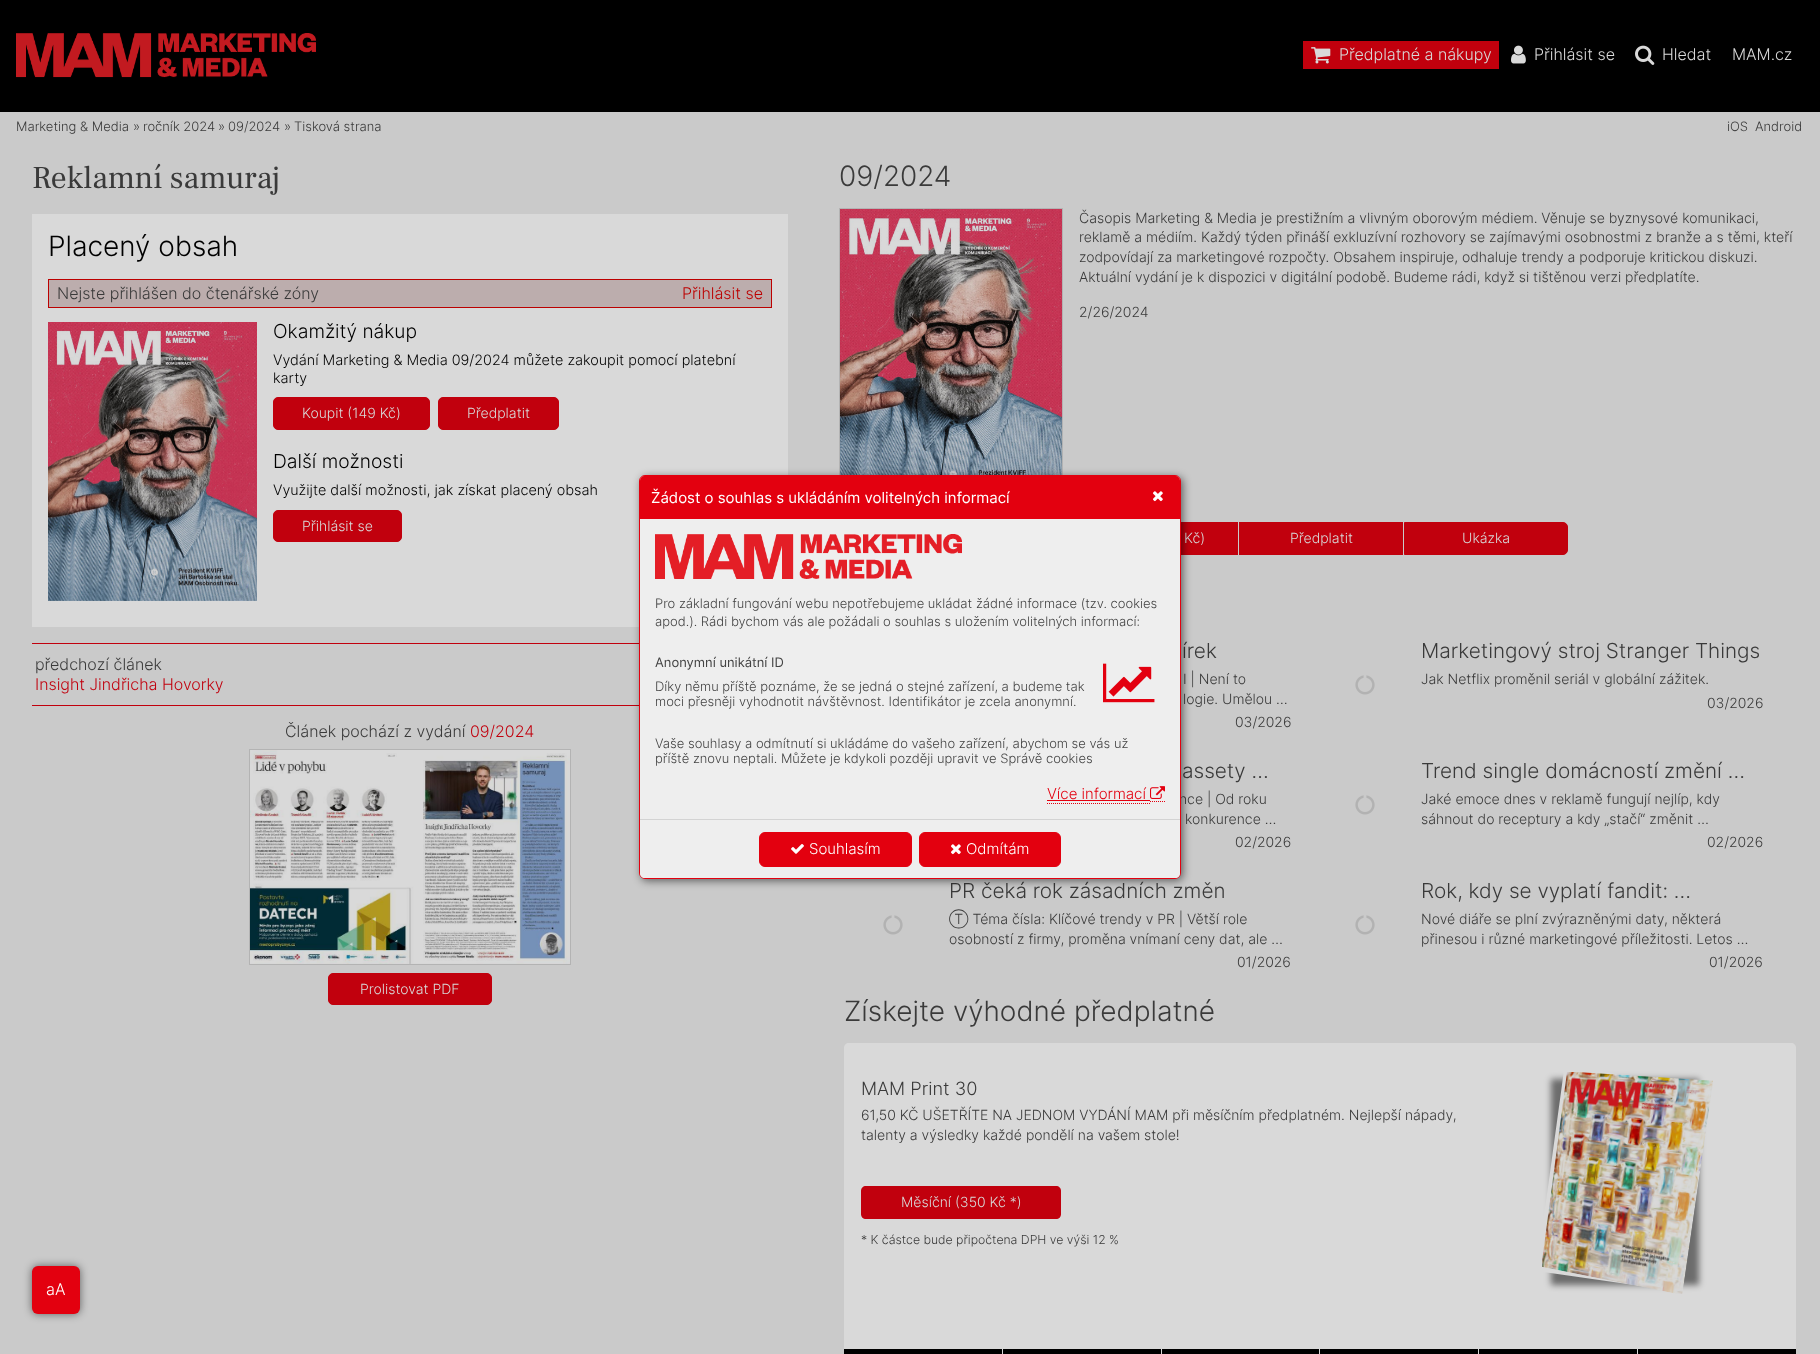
<svg xmlns="http://www.w3.org/2000/svg" width="1820" height="1354" viewBox="0 0 1820 1354">
  <style>
    .t1 { font: 300 16px Inter; fill: #d9d9d9; }
    .t2 { font: 300 13px Inter; fill: #3a3a3a; }
    .t3 { font: 32px Frank Ruhl Libre; fill: #3a3a3a; }
    .t4 { font: 300 28px Inter; fill: #000; }
    .t5 { font: 300 16px Inter; fill: #3a3a3a; }
    .t6 { font: 300 16px Inter; fill: #bc0000; }
    .t7 { font: 300 19.25px Inter; fill: #000; }
    .t8 { font: 300 14.4px Inter; fill: #000; }
    .t9 { font: 300 14px Inter; fill: #d9d9d9; }
    .t10 { font: 300 16px Inter; fill: #c1000d; }
    .t11 { font: 300 28px Inter; fill: #3a3a3a; }
    .t12 { font: 300 14px Inter; fill: #3a3a3a; }
    .t13 { font: 300 20.75px Inter; fill: #3a3a3a; }
    .t14 { font: 300 18.25px Inter; fill: #3a3a3a; }
    .t15 { font: 300 12.25px Inter; fill: #3a3a3a; }
    .t16 { font: 15px Inter; fill: #fff; }
    .t17 { font: 300 13px Inter; fill: #444; }
    .t18 { font: 13px Inter; fill: #444; }
    .t19 { font: 300 15px Inter; fill: #e3000f; }
    .t20 { font: 300 15px Inter; fill: #fff; }
    .t21 { font: 300 16px Inter; fill: #fff; }
  </style>
  <defs>
    <clipPath id="clip1"><path d="M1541 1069H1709V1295H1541ZM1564.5 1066.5L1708 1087L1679.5 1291.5L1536.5 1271Z" clip-rule="evenodd"/></clipPath>
  </defs>
  <rect width="100%" height="100%" fill="#cacaca"/>
  <rect x="0" y="0" width="1820" height="112" fill="#000"/>
  <image x="16" y="33" width="300" height="45" href="images/1.png"/>
  <rect x="1303" y="41" width="196" height="28" fill="#c1000d"/>
  <image x="1311" y="47" width="20" height="17" href="images/2.png"/>
  <text x="1339" y="60" class="t1">Předplatné a nákupy</text>
  <image x="1511" y="45" width="15" height="19" href="images/3.png"/>
  <text x="1534" y="60" class="t1">Přihlásit se</text>
  <image x="1635" y="45" width="20" height="20" href="images/4.png"/>
  <text x="1662" y="60" class="t1">Hledat</text>
  <text x="1732" y="60" class="t1">MAM.cz</text>
  <text x="16" y="131" class="t2">Marketing &amp; Media</text>
  <text x="133" y="131" class="t2">»</text>
  <text x="143" y="131" class="t2">ročník 2024</text>
  <text x="218" y="131" class="t2">»</text>
  <text x="228" y="131" class="t2">09/2024</text>
  <text x="284" y="131" class="t2">»</text>
  <text x="294" y="131" class="t2">Tisková strana</text>
  <text x="1727" y="131" class="t2">iOS</text>
  <text x="1755" y="131" class="t2">Android</text>
  <rect x="32" y="214" width="756" height="413" fill="#d9d9d9"/>
  <text x="32" y="188" class="t3">Reklamní samuraj</text>
  <text x="48" y="256" class="t4">Placený obsah</text>
  <rect x="48.5" y="279.5" width="723" height="28" fill="#bcadad" stroke="#bc0000"/>
  <text x="57" y="299" class="t5">Nejste přihlášen do čtenářské zóny</text>
  <text x="682" y="299" class="t6">Přihlásit se</text>
  <image x="48" y="322" width="209" height="279" href="images/5.png"/>
  <text x="273" y="338" class="t7">Okamžitý nákup</text>
  <text x="273" y="365" class="t8">Vydání Marketing &amp; Media 09/2024 můžete zakoupit pomocí platební</text>
  <text x="273" y="383" class="t8">karty</text>
  <rect x="273.5" y="397.5" width="156" height="32" rx="4.5" fill="#c1000d" stroke="#c1000d"/>
  <text x="302" y="418" class="t9">Koupit (149 Kč)</text>
  <rect x="438.5" y="397.5" width="120" height="32" rx="4.5" fill="#c1000d" stroke="#c1000d"/>
  <text x="467" y="418" class="t9">Předplatit</text>
  <text x="273" y="468" class="t7">Další možnosti</text>
  <text x="273" y="495" class="t8">Využijte další možnosti, jak získat placený obsah</text>
  <rect x="273.5" y="510.5" width="128" height="31" rx="4.5" fill="#c1000d" stroke="#c1000d"/>
  <text x="302" y="531" class="t9">Přihlásit se</text>
  <rect x="32" y="643" width="607" height="1" fill="#c1000d"/>
  <rect x="32" y="705" width="607" height="1" fill="#c1000d"/>
  <text x="35" y="670" class="t5">předchozí článek</text>
  <text x="35" y="690" class="t10">Insight Jindřicha Hovorky</text>
  <text x="285" y="737" class="t5">Článek pochází z vydání</text>
  <text x="470" y="737" class="t10">09/2024</text>
  <rect x="249.5" y="749.5" width="321" height="215" fill="none" stroke="#b3b3b3"/>
  <image x="250" y="750" width="160" height="214" href="images/6.png"/>
  <image x="410" y="750" width="160" height="214" href="images/7.png"/>
  <rect x="328.5" y="973.5" width="163" height="31" rx="4.5" fill="#c1000d" stroke="#c1000d"/>
  <text x="360" y="994" class="t9">Prolistovat PDF</text>
  <text x="839" y="186" class="t11">09/2024</text>
  <rect x="839.5" y="208.5" width="223" height="297" fill="none" stroke="#b3b3b3"/>
  <image x="840" y="209" width="222" height="266" href="images/8.png"/>
  <text x="1079" y="223" class="t12">Časopis Marketing &amp; Media je prestižním a vlivným oborovým médiem. Věnuje se byznysové komunikaci,</text>
  <text x="1079" y="242" class="t12">reklamě a médiím. Každý týden přináší exkluzívní rozhovory se zajímavými osobnostmi z branže a s těmi, kteří</text>
  <text x="1079" y="262" class="t12">zodpovídají za marketingové rozpočty. Obsahem inspiruje, odhaluje trendy a podporuje kritickou diskuzi.</text>
  <text x="1079" y="282" class="t12">Aktuální vydání je k dispozici v digitální podobě. Budeme rádi, když si tištěnou verzi předplatíte.</text>
  <text x="1079" y="317" class="t12">2/26/2024</text>
  <rect x="1181" y="523" width="56" height="31" fill="#c1000d"/>
  <rect x="1074.5" y="522.5" width="163" height="32" fill="none" stroke="#c1000d"/>
  <text x="1184" y="543" class="t9">Kč)</text>
  <rect x="1239" y="522" width="164" height="33" fill="#c1000d"/>
  <text x="1290" y="543" class="t9">Předplatit</text>
  <path d="M1404.5 522.5H1563C1565.5 522.5 1567.5 524.5 1567.5 527V550C1567.5 552.5 1565.5 554.5 1563 554.5H1404.5Z" fill="#c1000d" stroke="#c1000d"/>
  <text x="1462" y="543" class="t9">Ukázka</text>
  <text x="1182" y="658" class="t13">írek</text>
  <text x="1183" y="684" class="t12">I | Není to</text>
  <text x="1183" y="704" class="t12">logie. Umělou …</text>
  <text x="1235" y="727" class="t12">03/2026</text>
  <text x="1421" y="658" class="t13">Marketingový stroj Stranger Things</text>
  <image x="1355" y="675" width="20" height="20" href="images/9.png"/>
  <text x="1421" y="684" class="t12">Jak Netflix proměnil seriál v globální zážitek.</text>
  <text x="1707" y="708" class="t12">03/2026</text>
  <text x="1182" y="778" class="t13">assety …</text>
  <text x="1179" y="804" class="t12">nce | Od roku</text>
  <text x="1185" y="824" class="t12">konkurence …</text>
  <text x="1235" y="847" class="t12">02/2026</text>
  <text x="1421" y="778" class="t13">Trend single domácností změní …</text>
  <image x="1355" y="795" width="20" height="20" href="images/9.png"/>
  <text x="1421" y="804" class="t12">Jaké emoce dnes v reklamě fungují nejlíp, kdy</text>
  <text x="1421" y="824" class="t12">sáhnout do receptury a kdy „stačí“ změnit …</text>
  <text x="1707" y="847" class="t12">02/2026</text>
  <text x="949" y="898" class="t13">PR čeká rok zásadních změn</text>
  <image x="883" y="915" width="20" height="20" href="images/9.png"/>
  <text x="949" y="924" class="t12">Ⓣ Téma čísla: Klíčové trendy v PR | Větší role</text>
  <text x="949" y="944" class="t12">osobností z firmy, proměna vnímaní ceny dat, ale …</text>
  <text x="1237" y="967" class="t12">01/2026</text>
  <text x="1421" y="898" class="t13">Rok, kdy se vyplatí fandit: …</text>
  <image x="1355" y="915" width="20" height="20" href="images/9.png"/>
  <text x="1421" y="924" class="t12">Nové diáře se plní zvýrazněnými daty, některá</text>
  <text x="1421" y="944" class="t12">přinesou i různé marketingové příležitosti. Letos …</text>
  <text x="1709" y="967" class="t12">01/2026</text>
  <text x="844" y="1021" class="t11">Získejte výhodné předplatné</text>
  <path d="M849 1043H1791C1794 1043 1796 1045 1796 1048V1354H844V1048C844 1045 846 1043 849 1043Z" fill="#d9d9d9"/>
  <text x="861" y="1095" class="t14">MAM Print 30</text>
  <g clip-path="url(#clip1)">
    <rect x="1551" y="1079" width="148" height="206" fill="#00000080" filter="blur(3px)"/>
  </g>
  <image x="1542" y="1072" width="171" height="222" href="images/10.png"/>
  <text x="861" y="1120" class="t12">61,50 KČ UŠETŘÍTE NA JEDNOM VYDÁNÍ MAM při měsíčním předplatném. Nejlepší nápady,</text>
  <text x="861" y="1140" class="t12">talenty a výsledky každé pondělí na vašem stole!</text>
  <path d="M866 1186H1056C1059 1186 1061 1188 1061 1191V1214C1061 1217 1059 1219 1056 1219H866C863 1219 861 1217 861 1214V1191C861 1188 863 1186 866 1186Z" fill="#c1000d"/>
  <text x="901" y="1207" class="t9">Měsíční (350 Kč *)</text>
  <text x="861" y="1244" class="t15">* K částce bude připočtena DPH ve výši 12 %</text>
  <rect x="844" y="1349" width="158" height="5" fill="#000"/>
  <rect x="1003" y="1349" width="158" height="5" fill="#000"/>
  <rect x="1162" y="1349" width="157" height="5" fill="#000"/>
  <rect x="1320" y="1349" width="158" height="5" fill="#000"/>
  <rect x="1479" y="1349" width="158" height="5" fill="#000"/>
  <rect x="1638" y="1349" width="158" height="5" fill="#000"/>
  <rect x="641" y="477" width="542" height="404" rx="6" fill="#00000087" filter="blur(4px)"/>
  <rect x="639.5" y="475.5" width="541" height="403" rx="5.5" fill="#eee" stroke="#e3000f"/>
  <path d="M645 476H1175C1178 476 1180 478 1180 481V519H640V481C640 478 642 476 645 476Z" fill="#e3000f"/>
  <text x="651" y="503" class="t16">Žádost o souhlas s ukládáním volitelných informací</text>
  <image x="1153" y="491" width="10" height="11" href="images/11.png"/>
  <image x="655" y="534" width="307" height="45" href="images/12.png"/>
  <text x="655" y="608" class="t17">Pro základní fungování webu nepotřebujeme ukládat žádné informace (tzv. cookies</text>
  <text x="655" y="626" class="t17">apod.). Rádi bychom vás ale požádali o souhlas s uložením volitelných informací:</text>
  <text x="655" y="667" class="t18">Anonymní unikátní ID</text>
  <image x="1103" y="663" width="52" height="40" href="images/13.png"/>
  <text x="655" y="691" class="t17">Díky němu příště poznáme, že se jedná o stejné zařízení, a budeme tak</text>
  <text x="655" y="706" class="t17">moci přesněji vyhodnotit návštěvnost. Identifikátor je zcela anonymní.</text>
  <text x="655" y="748" class="t17">Vaše souhlasy a odmítnutí si ukládáme do vašeho zařízení, abychom se vás už</text>
  <text x="655" y="763" class="t17">příště znovu neptali. Můžete je kdykoli později upravit ve Správě cookies</text>
  <path d="M1047 803.5H1150" fill="none" stroke="#e3000f" stroke-dasharray="1 1"/>
  <path d="M1150 801.5H1165" fill="none" stroke="#e3000f" stroke-dasharray="1 1"/>
  <text x="1047" y="799" class="t19">Více informací</text>
  <rect x="1047" y="800" width="103" height="1" fill="#e3000f"/>
  <image x="1150" y="786" width="15" height="13" href="images/14.png"/>
  <path d="M640 819H1180V873C1180 876 1178 878 1175 878H645C642 878 640 876 640 873Z" fill="#eee"/>
  <rect x="640" y="819" width="540" height="1" fill="#d3d3d3"/>
  <rect x="759.5" y="832.5" width="152" height="34" rx="5.5" fill="#e3000f" stroke="#e3000f"/>
  <image x="791" y="844" width="13" height="10" href="images/15.png"/>
  <text x="809" y="854" class="t20">Souhlasím</text>
  <rect x="919.5" y="832.5" width="141" height="34" rx="5.5" fill="#e3000f" stroke="#e3000f"/>
  <image x="951" y="844" width="10" height="11" href="images/11.png"/>
  <text x="966" y="854" class="t20">Odmítám</text>
  <rect x="32" y="1266" width="48" height="48" rx="6" fill="#00000087" filter="blur(4px)"/>
  <rect x="32" y="1266" width="48" height="48" rx="6" fill="#e3000f"/>
  <text x="46" y="1295" class="t21">aA</text>
</svg>
